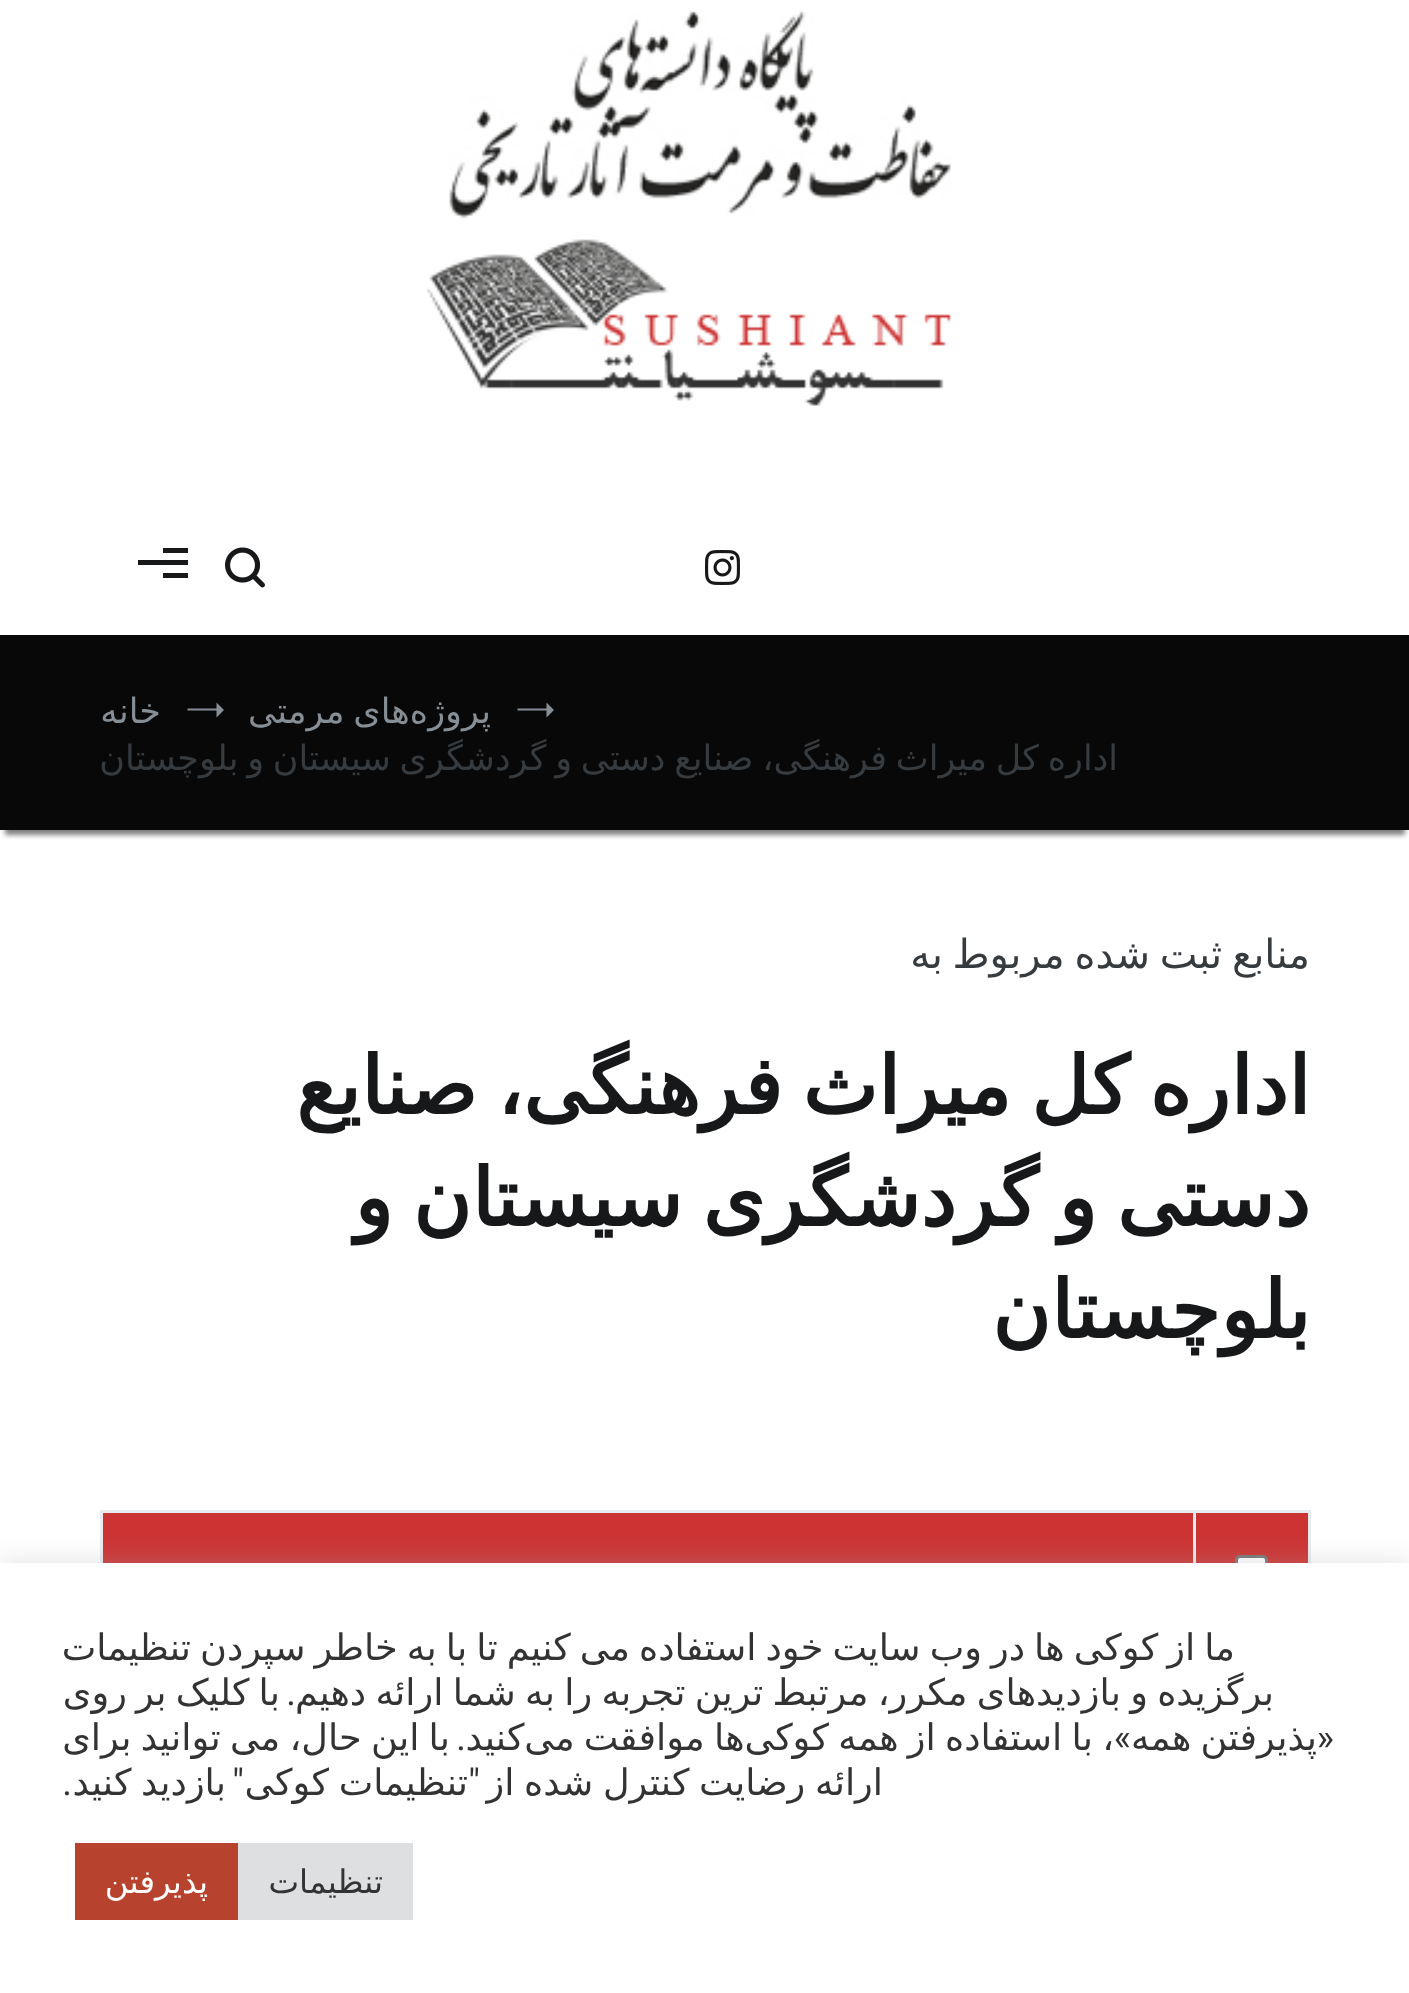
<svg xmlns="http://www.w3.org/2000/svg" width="1409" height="1993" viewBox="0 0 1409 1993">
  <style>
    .t1 { font: 35px DejaVu Sans; direction: rtl; fill: #868e96; }
    .t2 { font: 35px DejaVu Sans; direction: rtl; fill: #363b40; }
    .t3 { font: 40px DejaVu Sans; direction: rtl; fill: #363b40; }
    .t4 { font: bold 80px DejaVu Sans; direction: rtl; fill: #16181a; }
    .t5 { font: 36.7px DejaVu Sans; direction: rtl; fill: #333; }
    .t6 { font: 36.7px Roboto; direction: rtl; fill: #333; }
    .t7 { font: 32.5px DejaVu Sans; direction: rtl; fill: #333; }
    .t8 { font: 32.5px DejaVu Sans; direction: rtl; fill: #fff; }
  </style>
  <rect width="100%" height="100%" fill="#fff"/>
  <image x="427" y="10" width="525" height="396" href="images/1.png"/>
  <image x="705" y="550" width="35" height="35" href="images/2.png"/>
  <image x="225" y="547" width="40" height="41" href="images/3.png"/>
  <rect x="163" y="548" width="25" height="5" fill="#16181a"/>
  <rect x="138" y="560" width="50" height="5" fill="#16181a"/>
  <rect x="163" y="573" width="25" height="5" fill="#16181a"/>
  <rect x="5" y="650" width="1400" height="185" fill="#808080" filter="blur(2.5px)"/>
  <rect x="0" y="635" width="1409" height="195" fill="#080808"/>
  <path d="M554 710L546.5 717.5V702.5ZM517.5 708.5H547V710.5H517.5Z" fill="#868e96"/>
  <text x="491" y="723" word-spacing="-2.4" class="t1">پروژه‌های مرمتی</text>
  <path d="M224 710L216.5 717.5V702.5ZM187.5 708.5H217V710.5H187.5Z" fill="#868e96"/>
  <text x="161" y="723" class="t1">خانه</text>
  <text x="1118" y="770" word-spacing="-2.4" class="t2">اداره کل میراث فرهنگی، صنایع دستی و گردشگری سیستان و بلوچستان</text>
  <text x="1310" y="968" word-spacing="-3" class="t3">منابع ثبت شده مربوط به</text>
  <text x="1310" y="1114" word-spacing="-5.5" class="t4">اداره کل میراث فرهنگی، صنایع</text>
  <text x="1310" y="1226" word-spacing="-5.5" class="t4">دستی و گردشگری سیستان و</text>
  <text x="1310" y="1338" class="t4">بلوچستان</text>
  <rect x="103" y="1513" width="1205" height="50" fill="#c33"/>
  <rect x="100" y="1510" width="1095" height="3" fill="#e9ecef"/>
  <rect x="1193" y="1510" width="3" height="53" fill="#e9ecef"/>
  <rect x="1193" y="1510" width="117" height="3" fill="#e9ecef"/>
  <rect x="1308" y="1510" width="3" height="53" fill="#e9ecef"/>
  <rect x="1236.5" y="1556.5" width="30" height="30" rx="3.5" fill="#fff" stroke="#767676" stroke-width="3"/>
  <rect x="100" y="1510" width="3" height="53" fill="#e9ecef"/>
  <rect x="0" y="1560" width="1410" height="433" fill="#acabab4d" filter="blur(12.5px)"/>
  <rect x="0" y="1563" width="1409" height="430" fill="#fff"/>
  <text x="1235" y="1660" word-spacing="-2.6" class="t5">ما از کوکی ها در وب سایت خود استفاده می کنیم تا با به خاطر سپردن تنظیمات</text>
  <text x="1274" y="1705" word-spacing="-2.4" class="t5">برگزیده و بازدیدهای مکرر، مرتبط ترین تجربه را به شما ارائه دهیم</text>
  <text x="296" y="1705" class="t6">.</text>
  <text x="280" y="1705" word-spacing="-2.4" class="t5">با کلیک بر روی</text>
  <text x="1317" y="1750" word-spacing="-2.4" class="t5">پذیرفتن همه</text>
  <text x="1114" y="1750" word-spacing="-2.4" class="t5">، با استفاده از همه کوکی‌ها موافقت می‌کنید</text>
  <text x="450" y="1750" word-spacing="-2.4" class="t5">با این حال، می توانید برای</text>
  <text x="1334" y="1750" class="t6">«</text>
  <text x="1131" y="1750" class="t6">»</text>
  <text x="466" y="1750" class="t6">.</text>
  <text x="883" y="1795" word-spacing="-2" class="t5">ارائه رضایت کنترل شده از</text>
  <text x="480" y="1795" class="t6">"</text>
  <text x="468" y="1795" word-spacing="-2" class="t5">تنظیمات کوکی</text>
  <text x="244" y="1795" class="t6">"</text>
  <text x="226" y="1795" word-spacing="-2" class="t5">بازدید کنید</text>
  <text x="72" y="1795" class="t6">.</text>
  <rect x="238" y="1843" width="175" height="77" fill="#dedfe0"/>
  <text x="383" y="1893" class="t7">تنظیمات</text>
  <rect x="75" y="1843" width="163" height="77" fill="#b7422d"/>
  <text x="208" y="1893" class="t8">پذیرفتن</text>
</svg>
